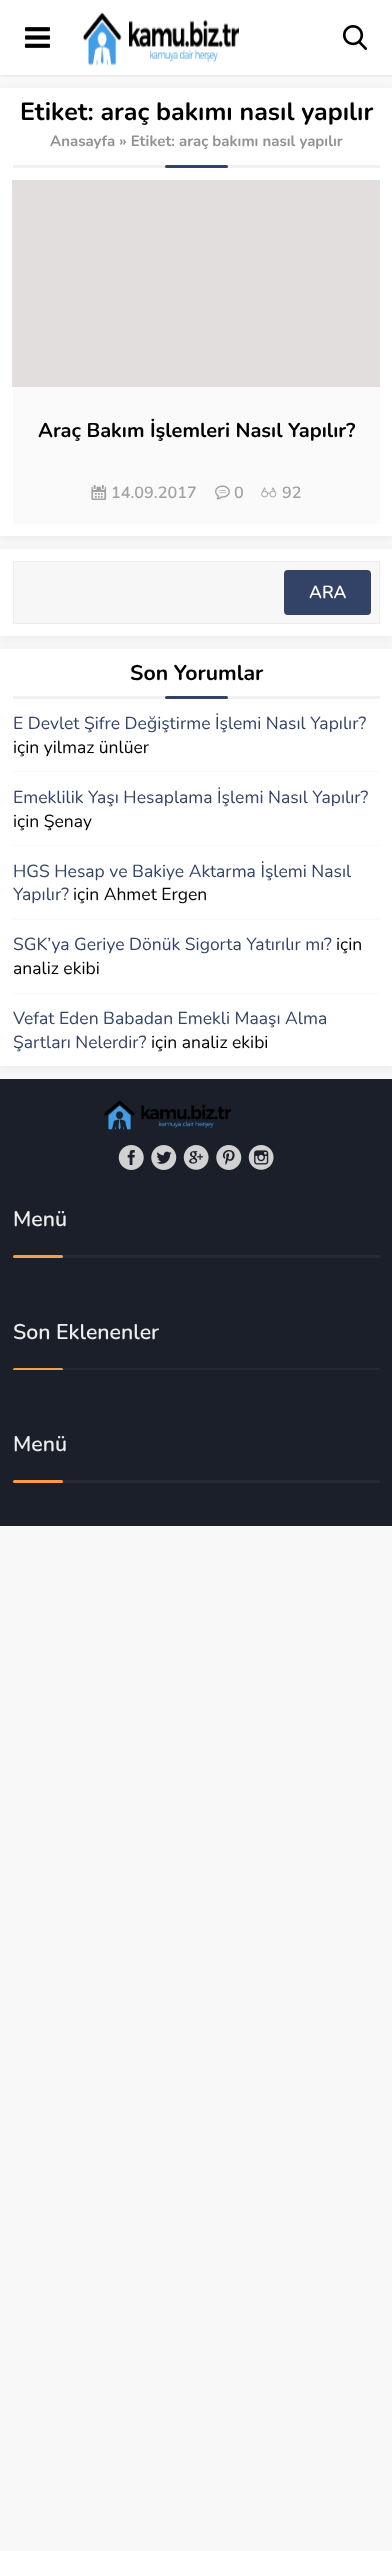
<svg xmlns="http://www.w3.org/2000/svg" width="392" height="2551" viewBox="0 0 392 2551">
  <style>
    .t1 { font: bold 25px Nunito; fill: #000; }
    .t2 { font: bold 15px Nunito; fill: #929292; }
    .t3 { font: bold 20px Nunito; fill: #000; }
    .t4 { font: 600 16.25px Nunito; fill: #a2a2a2; }
    .t5 { font: 600 17.5px Nunito; fill: #fff; }
    .t6 { font: bold 21.25px Nunito; fill: #000; }
    .t7 { font: 17.5px Nunito; fill: #334368; }
    .t8 { font: 17.5px Nunito; fill: #000; }
    .t9 { font: 600 21.25px Nunito; fill: #ededed; }
  </style>
  <defs>
    <clipPath id="clip1"><rect x="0" y="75" width="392" height="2"/></clipPath>
    <clipPath id="clip2"><rect x="13" y="1320" width="367" height="50"/></clipPath>
  </defs>
  <rect width="100%" height="100%" fill="#f8f8f8"/>
  <rect x="0" y="90" width="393" height="449" fill="#0000000d" filter="blur(5px)"/>
  <rect x="0" y="0" width="392" height="75" fill="#fff"/>
  <g clip-path="url(#clip1)">
    <rect x="0" y="0" width="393" height="75" fill="#00000026" filter="blur(2px)"/>
  </g>
  <image x="83" y="12" width="157" height="54" href="images/1.png"/>
  <image x="25" y="27" width="25" height="21" href="images/2.png"/>
  <image x="342" y="25" width="26" height="25" href="images/3.png"/>
  <rect x="0" y="88" width="392" height="448" fill="#fff"/>
  <text x="20" y="120" class="t1">Etiket: araç bakımı nasıl yapılır</text>
  <text x="50" y="146" class="t2">Anasayfa » Etiket: araç bakımı nasıl yapılır</text>
  <rect x="13" y="165" width="367" height="3" fill="#f1f1f1"/>
  <rect x="165" y="165" width="63" height="3" rx="1.5" fill="#334368"/>
  <rect x="13" y="387" width="367" height="137" fill="#fafafa"/>
  <rect x="12" y="180" width="368" height="207" fill="#e3dede"/>
  <text x="38" y="437" class="t3">Araç Bakım İşlemleri Nasıl Yapılır?</text>
  <image x="91" y="485" width="16" height="15" href="images/4.png"/>
  <text x="111" y="498" class="t4">14.09.2017</text>
  <image x="215" y="485" width="15" height="15" href="images/5.png"/>
  <text x="234" y="498" class="t4">0</text>
  <image x="261" y="487" width="16" height="11" href="images/6.png"/>
  <text x="282" y="498" class="t4">92</text>
  <rect x="0" y="551" width="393" height="88" fill="#0000000d" filter="blur(5px)"/>
  <rect x="0" y="549" width="392" height="87" fill="#fff"/>
  <rect x="13.5" y="561.5" width="366" height="62" fill="#f7f7f7" stroke="#eee"/>
  <rect x="284" y="570" width="87" height="45" rx="4" fill="#334368"/>
  <text x="309" y="598" class="t5">ARA</text>
  <rect x="0" y="1079" width="392" height="447" fill="#1b1f29"/>
  <rect x="0" y="651" width="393" height="418" fill="#0000000d" filter="blur(5px)"/>
  <rect x="0" y="649" width="392" height="417" fill="#fff"/>
  <text x="130" y="680" class="t6">Son Yorumlar</text>
  <rect x="13" y="696" width="367" height="3" fill="#f1f1f1"/>
  <rect x="165" y="696" width="63" height="3" rx="1.5" fill="#334368"/>
  <text x="13" y="729" class="t7">E Devlet Şifre Değiştirme İşlemi Nasıl Yapılır?</text>
  <text x="13" y="753" class="t8">için yilmaz ünlüer</text>
  <rect x="13" y="771" width="367" height="1" fill="#f9f9f9"/>
  <text x="13" y="803" class="t7">Emeklilik Yaşı Hesaplama İşlemi Nasıl Yapılır?</text>
  <text x="13" y="827" class="t8">için Şenay</text>
  <rect x="13" y="845" width="367" height="1" fill="#f9f9f9"/>
  <text x="13" y="877" class="t7">HGS Hesap ve Bakiye Aktarma İşlemi Nasıl</text>
  <text x="13" y="900" class="t7">Yapılır?</text>
  <text x="73" y="900" class="t8">için Ahmet Ergen</text>
  <rect x="13" y="919" width="367" height="1" fill="#f9f9f9"/>
  <text x="13" y="950" class="t7">SGK’ya Geriye Dönük Sigorta Yatırılır mı?</text>
  <text x="336" y="950" class="t8">için</text>
  <text x="13" y="974" class="t8">analiz ekibi</text>
  <rect x="13" y="993" width="367" height="1" fill="#f9f9f9"/>
  <text x="13" y="1024" class="t7">Vefat Eden Babadan Emekli Maaşı Alma</text>
  <text x="13" y="1048" class="t7">Şartları Nelerdir?</text>
  <text x="151" y="1048" class="t8">için analiz ekibi</text>
  <image x="104" y="1100" width="127" height="30" href="images/7.png"/>
  <image x="118" y="1145" width="26" height="25" href="images/8.png"/>
  <image x="151" y="1145" width="26" height="25" href="images/9.png"/>
  <image x="183" y="1145" width="26" height="25" href="images/10.png"/>
  <image x="216" y="1145" width="26" height="25" href="images/11.png"/>
  <image x="248" y="1145" width="26" height="25" href="images/12.png"/>
  <text x="13" y="1226" class="t9">Menü</text>
  <rect x="13" y="1255" width="367" height="3" rx="1.5" fill="#262a34"/>
  <rect x="13" y="1255" width="50" height="3" rx="1.5" fill="#f89d41"/>
  <text x="13" y="1339" class="t9">Son Eklenenler</text>
  <g clip-path="url(#clip2)">
    <rect x="13" y="1368" width="367" height="3" rx="1.5" fill="#262a34"/>
    <rect x="13" y="1368" width="50" height="3" rx="1.5" fill="#f89d41"/>
  </g>
  <text x="13" y="1451" class="t9">Menü</text>
  <rect x="13" y="1480" width="367" height="3" rx="1.5" fill="#262a34"/>
  <rect x="13" y="1480" width="50" height="3" rx="1.5" fill="#f89d41"/>
</svg>
